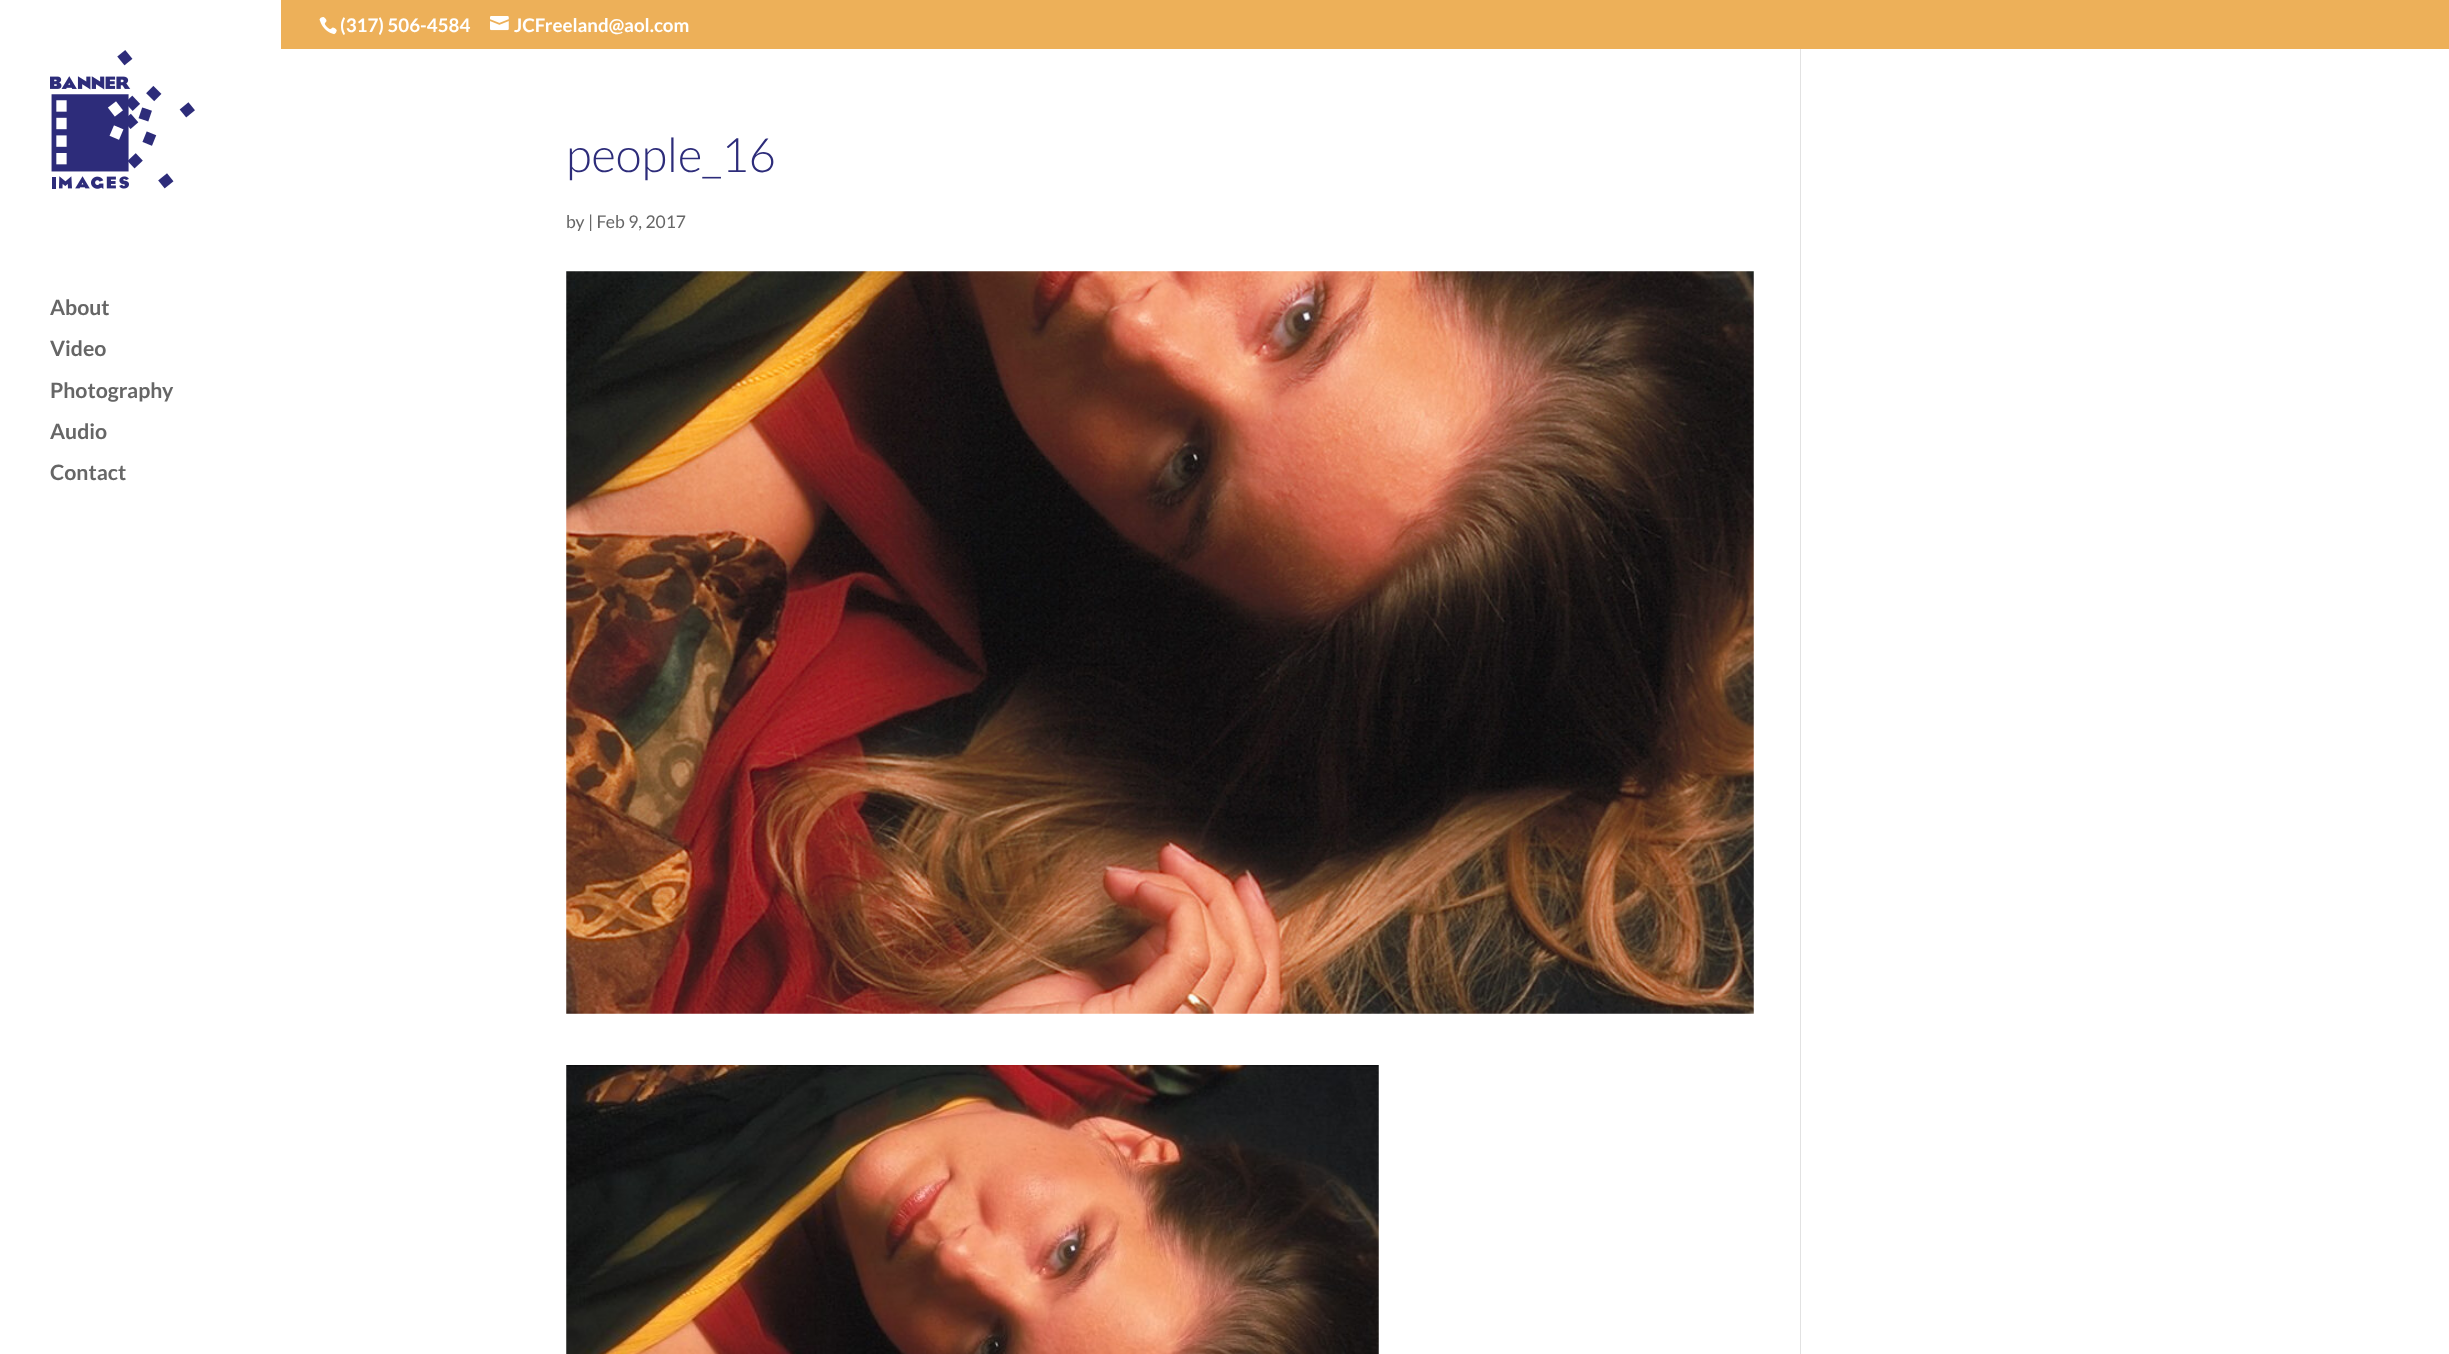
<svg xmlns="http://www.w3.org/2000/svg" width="2449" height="1354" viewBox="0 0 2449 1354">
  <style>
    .t1 { font: bold 18.75px Lato; fill: #fff; }
    .t2 { font: 300 47.5px Lato; fill: #2d2c7a; }
    .t3 { font: 17.5px Lato; fill: #666; }
    .t4 { font: bold 21.25px Lato; fill: #666; }
  </style>
  <rect width="100%" height="100%" fill="#fff"/>
  <rect x="281" y="0" width="2168" height="49" fill="#edb059"/>
  <image x="319" y="17" width="18" height="18" href="images/1.png"/>
  <text x="340" y="32" class="t1">(317) 506-4584</text>
  <image x="490" y="16" width="19" height="15" href="images/2.png"/>
  <text x="514" y="32" class="t1">JCFreeland@aol.com</text>
  <text x="566" y="172" class="t2">people_16</text>
  <text x="566" y="228" class="t3">by | Feb 9, 2017</text>
  <image x="566" y="271" width="1188" height="743" href="images/3.png"/>
  <image x="566" y="1065" width="813" height="289" href="images/4.png"/>
  <rect x="1800" y="49" width="1" height="1305" fill="#e2e2e2"/>
  <image x="50" y="50" width="145" height="139" href="images/5.png"/>
  <text x="50" y="315" class="t4">About</text>
  <text x="50" y="356" class="t4">Video</text>
  <text x="50" y="398" class="t4">Photography</text>
  <text x="50" y="439" class="t4">Audio</text>
  <text x="50" y="480" class="t4">Contact</text>
</svg>
